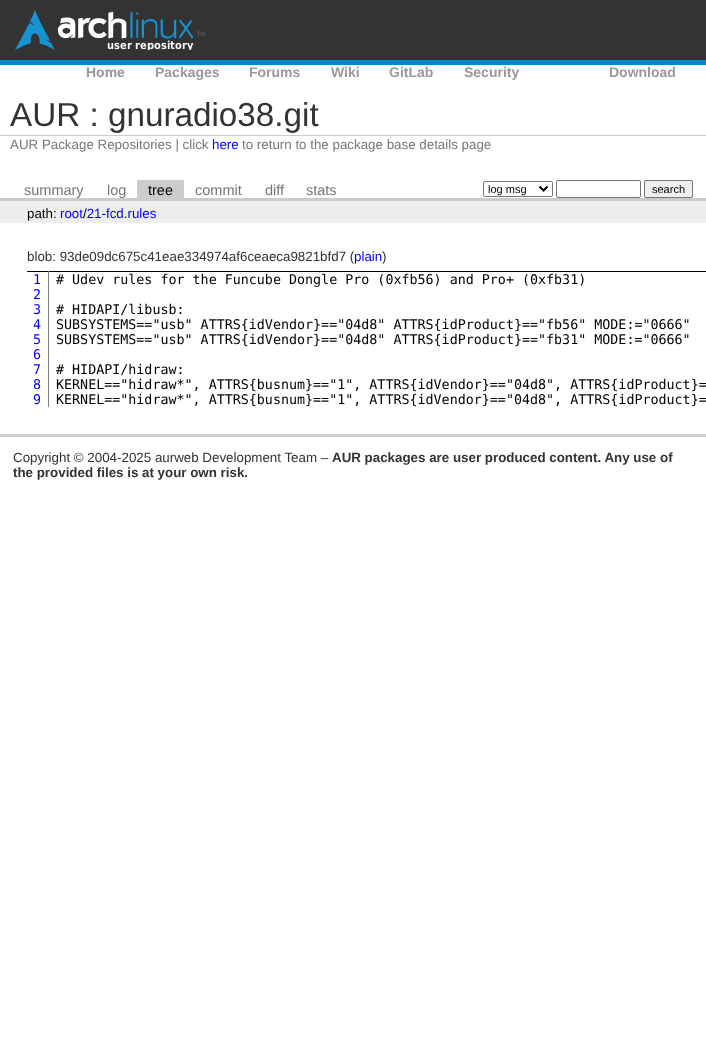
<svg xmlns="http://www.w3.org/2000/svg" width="706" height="1062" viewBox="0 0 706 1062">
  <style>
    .t1 { font: bold 14px Liberation Sans; fill: #999; }
    .t2 { font: 33.25px Liberation Sans; fill: #333; }
    .t3 { font: 13.35px Liberation Sans; fill: #777; }
    .t4 { font: 13.35px Liberation Sans; fill: #00f; }
    .t5 { font: 14.5px Liberation Sans; fill: #777; }
    .t6 { font: 14.5px Liberation Sans; fill: #000; }
    .t7 { font: 11px Liberation Sans; fill: #000; }
    .t8 { font: 13.35px Liberation Sans; fill: #000; }
    .t9 { font: 13.35px Liberation Sans; fill: #333; }
    .t10 { font: 13.35px DejaVu Sans Mono; fill: #00f; }
    .t11 { font: 13.35px DejaVu Sans Mono; fill: #000; }
    .t12 { font: bold 13.35px Liberation Sans; fill: #333; }
  </style>
  <rect width="100%" height="100%" fill="#fff"/>
  <rect x="0" y="0" width="706" height="60" fill="#333"/>
  <rect x="0" y="60" width="706" height="5" fill="#08c"/>
  <image x="15" y="10" width="190" height="40" href="images/1.png"/>
  <text x="86" y="77" class="t1">Home</text>
  <text x="155" y="77" class="t1">Packages</text>
  <text x="249" y="77" class="t1">Forums</text>
  <text x="331" y="77" class="t1">Wiki</text>
  <text x="389" y="77" class="t1">GitLab</text>
  <text x="464" y="77" class="t1">Security</text>
  <text x="609" y="77" class="t1">Download</text>
  <text x="10" y="126" class="t2">AUR : gnuradio38.git</text>
  <rect x="0" y="135" width="706" height="1" fill="#ccc"/>
  <text x="10" y="149" class="t3">AUR Package Repositories | click</text>
  <text x="212" y="149" class="t4">here</text>
  <text x="242" y="149" class="t3">to return to the package base details page</text>
  <rect x="0" y="198" width="706" height="3" fill="#ccc"/>
  <text x="24" y="195" class="t5">summary</text>
  <text x="107" y="195" class="t5">log</text>
  <rect x="137" y="180" width="47" height="18" fill="#ccc"/>
  <text x="148" y="195" class="t6">tree</text>
  <text x="195" y="195" class="t5">commit</text>
  <text x="265" y="195" class="t5">diff</text>
  <text x="306" y="195" class="t5">stats</text>
  <rect x="483.5" y="181.5" width="69" height="15" rx="1.5" fill="none" stroke="#767676"/>
  <path d="M539.5 186.5L543.5 190.5L547.5 186.5" fill="none" stroke="#000" stroke-width="2"/>
  <text x="488" y="193" class="t7">log msg</text>
  <rect x="556.5" y="180.5" width="84" height="17" rx="1.5" fill="none" stroke="#767676"/>
  <rect x="644.5" y="180.5" width="48" height="17" rx="1.5" fill="#efefef" stroke="#767676"/>
  <text x="652" y="193" class="t7">search</text>
  <rect x="0" y="201" width="706" height="22" fill="#eee"/>
  <text x="27" y="218" class="t8">path:</text>
  <text x="60" y="218" class="t4">root 21-fcd.rules</text>
  <text x="83" y="218" class="t8">/</text>
  <rect x="0" y="434" width="706" height="3" fill="#ccc"/>
  <text x="27" y="261" class="t9">blob: 93de09dc675c41eae334974af6ceaeca9821bfd7 (</text>
  <text x="354" y="261" class="t4">plain</text>
  <text x="382" y="261" class="t9">)</text>
  <rect x="27" y="271" width="679" height="1" fill="#000"/>
  <rect x="48" y="271" width="1" height="136" fill="#808080"/>
  <text x="33" y="284" class="t10">1</text>
  <text x="33" y="299" class="t10">2</text>
  <text x="33" y="314" class="t10">3</text>
  <text x="33" y="329" class="t10">4</text>
  <text x="33" y="344" class="t10">5</text>
  <text x="33" y="359" class="t10">6</text>
  <text x="33" y="374" class="t10">7</text>
  <text x="33" y="389" class="t10">8</text>
  <text x="33" y="404" class="t10">9</text>
  <text x="56" y="284" class="t11"># Udev rules for the Funcube Dongle Pro (0xfb56) and Pro+ (0xfb31)</text>
  <text x="56" y="314" class="t11"># HIDAPI/libusb:</text>
  <text x="56" y="329" class="t11">SUBSYSTEMS=="usb" ATTRS{idVendor}=="04d8" ATTRS{idProduct}=="fb56" MODE:="0666"</text>
  <text x="56" y="344" class="t11">SUBSYSTEMS=="usb" ATTRS{idVendor}=="04d8" ATTRS{idProduct}=="fb31" MODE:="0666"</text>
  <text x="56" y="374" class="t11"># HIDAPI/hidraw:</text>
  <text x="56" y="389" class="t11">KERNEL=="hidraw*", ATTRS{busnum}=="1", ATTRS{idVendor}=="04d8", ATTRS{idProduct}=</text>
  <text x="56" y="404" class="t11">KERNEL=="hidraw*", ATTRS{busnum}=="1", ATTRS{idVendor}=="04d8", ATTRS{idProduct}=</text>
  <text x="13" y="462" class="t9">Copyright © 2004-2025 aurweb Development Team –</text>
  <text x="332" y="462" class="t12">AUR packages are user produced content. Any use of</text>
  <text x="13" y="477" class="t12">the provided files is at your own risk.</text>
</svg>
